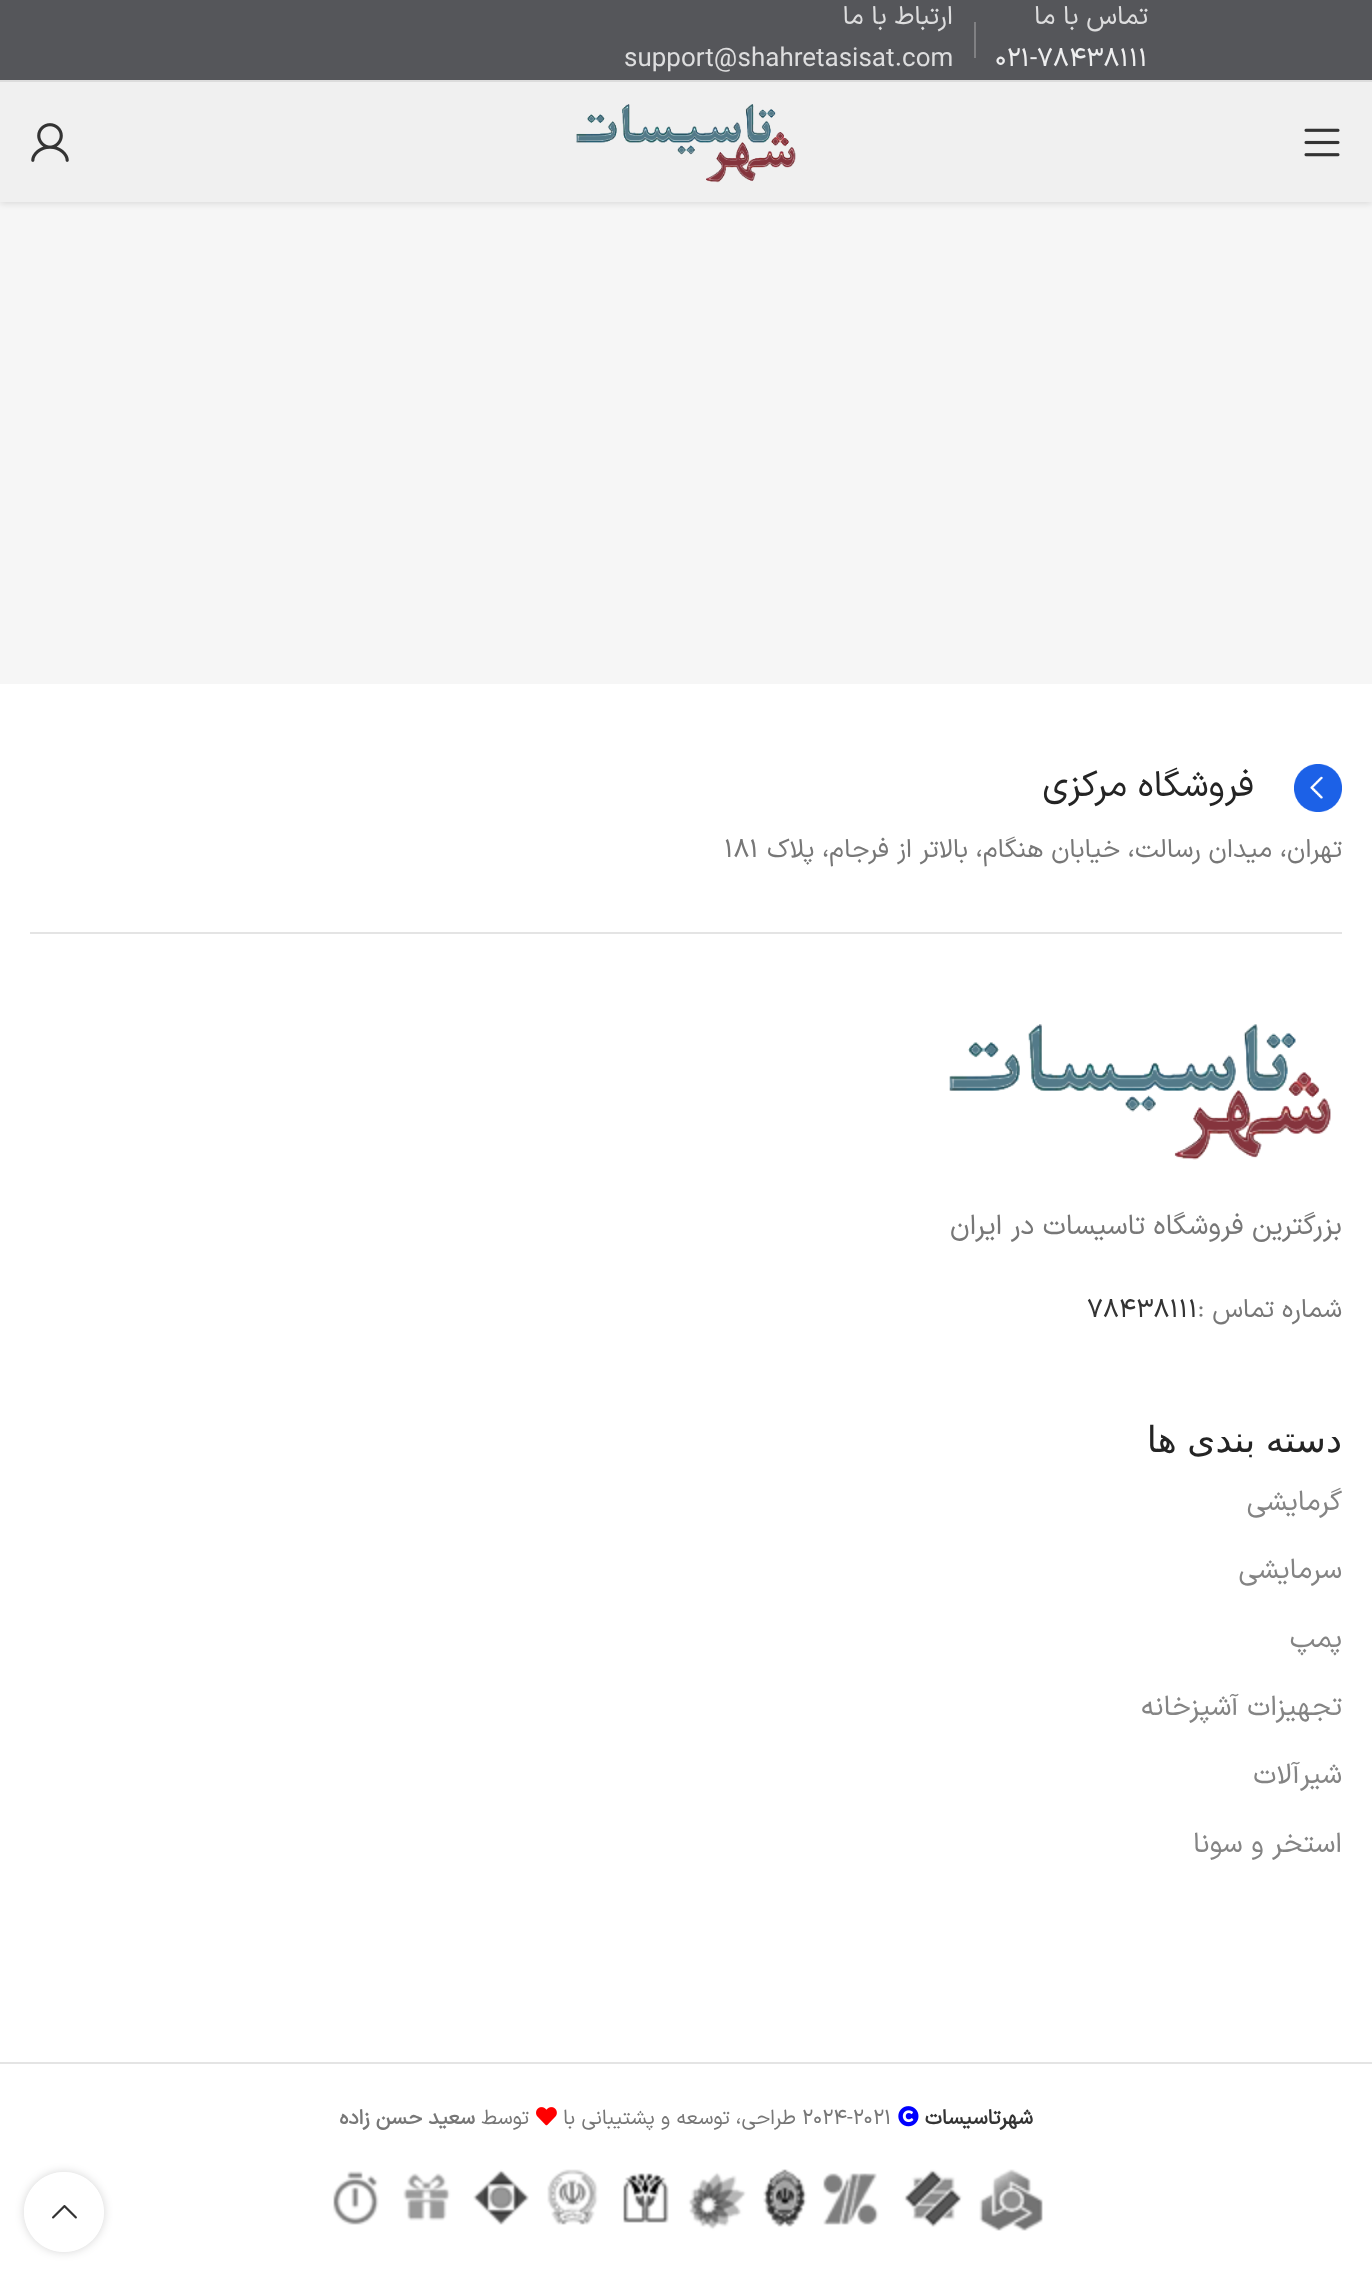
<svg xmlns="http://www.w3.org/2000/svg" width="1372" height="2276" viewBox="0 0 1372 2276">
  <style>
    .t1 { font: 26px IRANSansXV; direction: rtl; fill: #ddddde; }
    .t2 { font: 26px IRANSansXV; fill: #eeeeef; }
    .t3 { font: 26px IRANSansXV; fill: #ddddde; }
    .t4 { font: 36px IRANSansXV; direction: rtl; fill: #242424; }
    .t5 { font: 26px IRANSansXV; direction: rtl; fill: #777; }
    .t6 { font: 26px IRANSansXV; fill: #777; }
    .t7 { font: 28px IRANSansXV; direction: rtl; fill: #777; }
    .t8 { font: 26px IRANSansXV; fill: #333; }
    .t9 { font: 36px DejaVu Sans; direction: rtl; fill: #242424; }
    .t10 { font: 28px IRANSansXV; direction: rtl; fill: #848484; }
    .t11 { font: bold 20.75px IRANSansXV; direction: rtl; fill: #333; }
    .t12 { font: 20.75px IRANSansXV; fill: #777; }
    .t13 { font: 20.75px IRANSansXV; direction: rtl; fill: #777; }
    .t14 { font: bold 20.75px IRANSansXV; direction: rtl; fill: #777; }
  </style>
  <defs>
    <clipPath id="clip1"><path d="M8 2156H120V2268H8ZM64 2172C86 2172 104 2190 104 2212C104 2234 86 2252 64 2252C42 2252 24 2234 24 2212C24 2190 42 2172 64 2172Z" clip-rule="evenodd"/></clipPath>
  </defs>
  <rect width="100%" height="100%" fill="#fff"/>
  <rect x="0" y="202" width="1372" height="482" fill="#f6f6f6"/>
  <rect x="0" y="2" width="1372" height="202" fill="#0000001a" filter="blur(3px)"/>
  <rect x="0" y="0" width="1372" height="80" fill="#55565a"/>
  <rect x="0" y="80" width="1372" height="2" fill="#dcdcdc"/>
  <text x="1148" y="24" class="t1">تماس با ما</text>
  <text x="995" y="66" class="t2">۰۲۱-۷۸۴۳۸۱۱۱</text>
  <rect x="974" y="22" width="2" height="36" fill="#808083"/>
  <text x="953" y="24" class="t1">ارتباط با ما</text>
  <text x="624" y="66" class="t3">support@shahretasisat.com</text>
  <rect x="0" y="82" width="1372" height="120" fill="#f0f0f0"/>
  <image x="1304" y="128" width="36" height="29" href="images/1.png"/>
  <image x="576" y="104" width="220" height="79" href="images/2.png"/>
  <image x="31" y="123" width="38" height="39" href="images/3.png"/>
  <rect x="30" y="932" width="1312" height="2" fill="#e4e4e4"/>
  <image x="1294" y="764" width="48" height="48" href="images/4.png"/>
  <text x="1254" y="796" class="t4">فروشگاه مرکزی</text>
  <text x="1342" y="857" class="t5">تهران، میدان رسالت، خیابان هنگام، بالاتر از فرجام، پلاک</text>
  <text x="724" y="857" class="t6">۱۸۱</text>
  <image x="949" y="1024" width="382" height="136" href="images/5.png"/>
  <text x="1342" y="1234" class="t7">بزرگترین فروشگاه تاسیسات در ایران</text>
  <text x="1342" y="1317" class="t5">شماره تماس :</text>
  <text x="1087" y="1317" class="t8">۷۸۴۳۸۱۱۱</text>
  <text x="1342" y="1452" word-spacing="-1" class="t9">دسته بندی ها</text>
  <text x="1342" y="1510" class="t10">گرمایشی</text>
  <text x="1342" y="1578" class="t10">سرمایشی</text>
  <text x="1342" y="1647" class="t10">پمپ</text>
  <text x="1342" y="1715" class="t10">تجهیزات آشپزخانه</text>
  <text x="1342" y="1783" class="t10">شیرآلات</text>
  <text x="1342" y="1852" class="t10">استخر و سونا</text>
  <rect x="0" y="2062" width="1372" height="2" fill="#e4e4e4"/>
  <text x="1033" y="2124" class="t11">شهرتاسیسات</text>
  <image x="898" y="2106" width="21" height="21" href="images/6.png"/>
  <text x="802" y="2124" class="t12">۲۰۲۴-۲۰۲۱</text>
  <text x="796" y="2124" class="t13">طراحی، توسعه و پشتیبانی با</text>
  <image x="536" y="2107" width="21" height="19" href="images/7.png"/>
  <text x="529" y="2124" class="t13">توسط</text>
  <text x="475" y="2124" class="t14">سعید حسن زاده</text>
  <image x="333" y="2169" width="710" height="62" href="images/8.png"/>
  <g clip-path="url(#clip1)">
    <rect x="24" y="2172" width="80" height="80" rx="40" fill="#0000002b" filter="blur(5px)"/>
  </g>
  <circle cx="64" cy="2212" r="40" fill="#ffffffe6"/>
  <image x="52" y="2205" width="25" height="14" href="images/9.png"/>
</svg>
